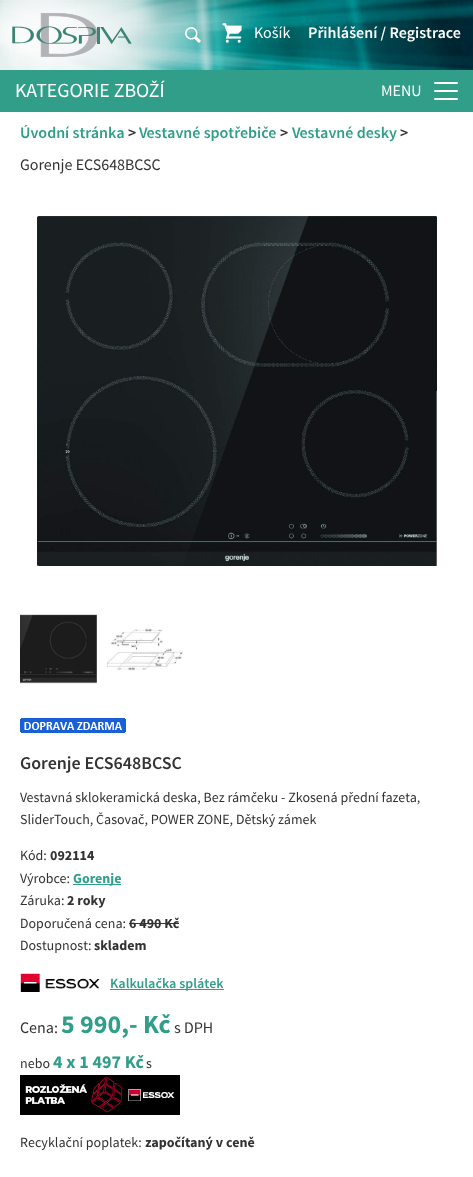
<svg xmlns="http://www.w3.org/2000/svg" width="473" height="1177" viewBox="0 0 473 1177">
  <style>
    .t1 { font: 16px Source Sans Pro; fill: #fff; }
    .t2 { font: 600 16px Source Sans Pro; fill: #fff; }
    .t3 { font: 20px Source Sans Pro; fill: #fff; }
    .t4 { font: 600 16px Source Sans Pro; fill: #309e89; }
    .t5 { font: 600 16px Source Sans Pro; fill: #333; }
    .t6 { font: 16px Source Sans Pro; fill: #333; }
    .t7 { font: 600 18px Source Sans Pro; fill: #333; }
    .t8 { font: 14px Source Sans Pro; fill: #333; }
    .t9 { font: bold 14px Source Sans Pro; fill: #333; }
    .t10 { font: bold 14px Source Sans Pro; fill: #309e89; }
    .t11 { font: 600 14px Source Sans Pro; fill: #309e89; }
    .t12 { font: bold 26px Source Sans Pro; fill: #309e89; }
    .t13 { font: bold 18px Source Sans Pro; fill: #309e89; }
  </style>
  <rect width="100%" height="100%" fill="#fff"/>
  <image x="0" y="0" width="473" height="70" href="images/1.png"/>
  <image x="12" y="13" width="120" height="44" href="images/2.png"/>
  <image x="185" y="27" width="16" height="16" href="images/3.png"/>
  <image x="222" y="23" width="20" height="20" href="images/4.png"/>
  <text x="254" y="38" class="t1">Košík</text>
  <text x="308" y="38" class="t2">Přihlášení / Registrace</text>
  <rect x="0" y="70" width="473" height="42" fill="#309e89"/>
  <text x="15" y="97" class="t3">KATEGORIE ZBOŽÍ</text>
  <text x="381" y="96" class="t1">MENU</text>
  <rect x="434" y="90" width="24" height="2" rx="1" fill="#fff"/>
  <rect x="434" y="82" width="24" height="2" rx="1" fill="#fff"/>
  <rect x="434" y="98" width="24" height="2" rx="1" fill="#fff"/>
  <text x="20" y="138" class="t4">Úvodní stránka</text>
  <text x="128" y="138" class="t5">&gt;</text>
  <text x="139" y="138" class="t4">Vestavné spotřebiče</text>
  <text x="280" y="138" class="t5">&gt;</text>
  <text x="292" y="138" class="t4">Vestavné desky</text>
  <text x="400" y="138" class="t5">&gt;</text>
  <text x="20" y="170" class="t6">Gorenje ECS648BCSC</text>
  <image x="37" y="216" width="400" height="350" href="images/5.png"/>
  <image x="20" y="614" width="77" height="70" href="images/6.png"/>
  <image x="107" y="628" width="76" height="43" href="images/7.png"/>
  <image x="20" y="718" width="106" height="15" href="images/8.png"/>
  <text x="20" y="769" class="t7">Gorenje ECS648BCSC</text>
  <text x="20" y="802" class="t8">Vestavná sklokeramická deska, Bez rámčeku - Zkosená přední fazeta,</text>
  <text x="20" y="824" class="t8">SliderTouch, Časovač, POWER ZONE, Dětský zámek</text>
  <text x="20" y="860" class="t8">Kód:</text>
  <text x="50" y="860" class="t9">092114</text>
  <text x="20" y="883" class="t8">Výrobce:</text>
  <rect x="73" y="884" width="48" height="1" fill="#309e89"/>
  <text x="73" y="883" class="t10">Gorenje</text>
  <text x="20" y="905" class="t8">Záruka:</text>
  <text x="67" y="905" class="t9">2 roky</text>
  <text x="20" y="928" class="t8">Doporučená cena:</text>
  <text x="129" y="928" class="t9">6 490 Kč</text>
  <rect x="129" y="923" width="50" height="1" fill="#333"/>
  <text x="20" y="950" class="t8">Dostupnost:</text>
  <text x="94" y="950" class="t9">skladem</text>
  <image x="20" y="973" width="80" height="19" href="images/9.png"/>
  <rect x="110" y="989" width="114" height="1" fill="#309e89"/>
  <text x="110" y="988" class="t11">Kalkulačka splátek</text>
  <text x="20" y="1033" class="t6">Cena:</text>
  <text x="61" y="1033" class="t12">5 990,- Kč</text>
  <text x="174" y="1033" class="t6">s DPH</text>
  <text x="20" y="1068" class="t8">nebo</text>
  <text x="53" y="1068" class="t13">4 x 1 497 Kč</text>
  <text x="146" y="1068" class="t8">s</text>
  <image x="20" y="1075" width="160" height="40" href="images/10.png"/>
  <text x="20" y="1147" class="t8">Recyklační poplatek:</text>
  <text x="145" y="1147" class="t9">započítaný v ceně</text>
</svg>
